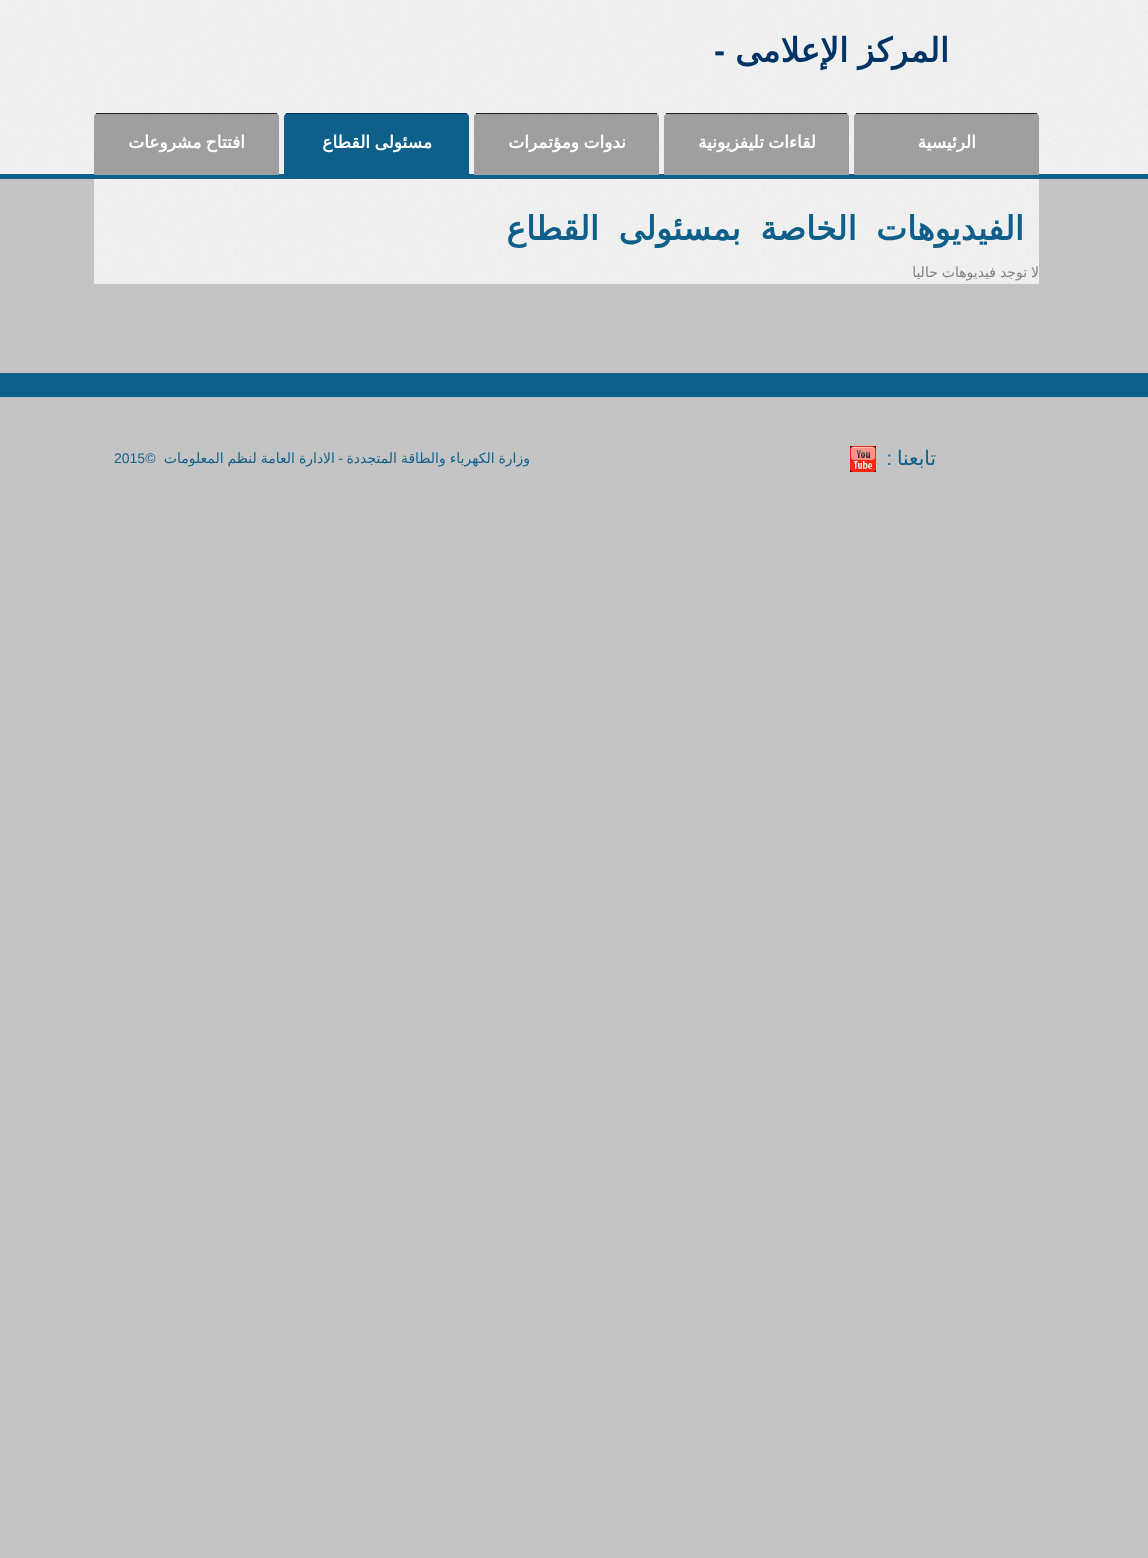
<svg xmlns="http://www.w3.org/2000/svg" width="1148" height="1558" viewBox="0 0 1148 1558">
  <style>
    .t1 { font: bold 33.25px DejaVu Sans; direction: rtl; fill: #036; }
    .t2 { font: bold 33.25px Liberation Sans; direction: rtl; fill: #036; }
    .t3 { font: bold 17px DejaVu Sans; direction: rtl; fill: #fff; }
    .t4 { font: bold 33px DejaVu Sans; letter-spacing: -1px; direction: rtl; fill: #0e5f89; }
    .t5 { font: 14px DejaVu Sans; direction: rtl; fill: #808080; }
    .t6 { font: 20px DejaVu Sans; direction: rtl; fill: #0e5f89; }
    .t7 { font: 20px Liberation Sans; direction: rtl; fill: #0e5f89; }
    .t8 { font: 14px DejaVu Sans; direction: rtl; fill: #0e5f89; }
    .t9 { font: 14px Liberation Sans; direction: rtl; fill: #0e5f89; }
    .t10 { font: 14px Liberation Sans; fill: #0e5f89; }
  </style>
  <rect width="100%" height="100%" fill="#c4c4c4"/>
  <image x="0" y="0" width="1148" height="179" href="images/1.png"/>
  <text x="949" y="62" word-spacing="-1" class="t1">المركز الإعلامى</text>
  <text x="725" y="62" class="t2">-</text>
  <path d="M858 113H1035C1037 113 1039 115 1039 117V175H854V117C854 115 856 113 858 113Z" fill="#9f9f9f"/>
  <rect x="856" y="113" width="181" height="1" fill="#1f1f1f"/>
  <text x="976" y="148" class="t3">الرئيسية</text>
  <path d="M668 113H845C847 113 849 115 849 117V175H664V117C664 115 666 113 668 113Z" fill="#9f9f9f"/>
  <rect x="666" y="113" width="181" height="1" fill="#1f1f1f"/>
  <text x="816" y="148" word-spacing="-1" class="t3">لقاءات تليفزيونية</text>
  <path d="M478 113H655C657 113 659 115 659 117V175H474V117C474 115 476 113 478 113Z" fill="#9f9f9f"/>
  <rect x="476" y="113" width="181" height="1" fill="#1f1f1f"/>
  <text x="626" y="148" word-spacing="-1" class="t3">ندوات ومؤتمرات</text>
  <path d="M288 113H465C467 113 469 115 469 117V175H284V117C284 115 286 113 288 113Z" fill="#0e5f89"/>
  <rect x="286" y="113" width="181" height="1" fill="#036"/>
  <text x="432" y="148" word-spacing="-1" class="t3">مسئولى القطاع</text>
  <path d="M98 113H275C277 113 279 115 279 117V175H94V117C94 115 96 113 98 113Z" fill="#9f9f9f"/>
  <rect x="96" y="113" width="181" height="1" fill="#1f1f1f"/>
  <text x="245" y="148" word-spacing="-1" class="t3">افتتاح مشروعات</text>
  <image x="94" y="179" width="945" height="105" href="images/2.png"/>
  <text x="1024" y="240" word-spacing="9" class="t4">الفيديوهات الخاصة بمسئولى القطاع</text>
  <text x="1039" y="277" word-spacing="-0.5" class="t5">لا توجد فيديوهات حاليا</text>
  <rect x="0" y="373" width="1148" height="24" fill="#0e5f89"/>
  <text x="936" y="465" class="t6">تابعنا</text>
  <text x="892" y="465" class="t7">:</text>
  <image x="850" y="446" width="26" height="26" href="images/3.png"/>
  <text x="530" y="463" word-spacing="-0.5" class="t8">وزارة الكهرباء والطاقة المتجددة</text>
  <text x="343" y="463" class="t9">-</text>
  <text x="335" y="463" word-spacing="-0.5" class="t8">الادارة العامة لنظم المعلومات</text>
  <text x="114" y="463" class="t10">2015©</text>
</svg>
